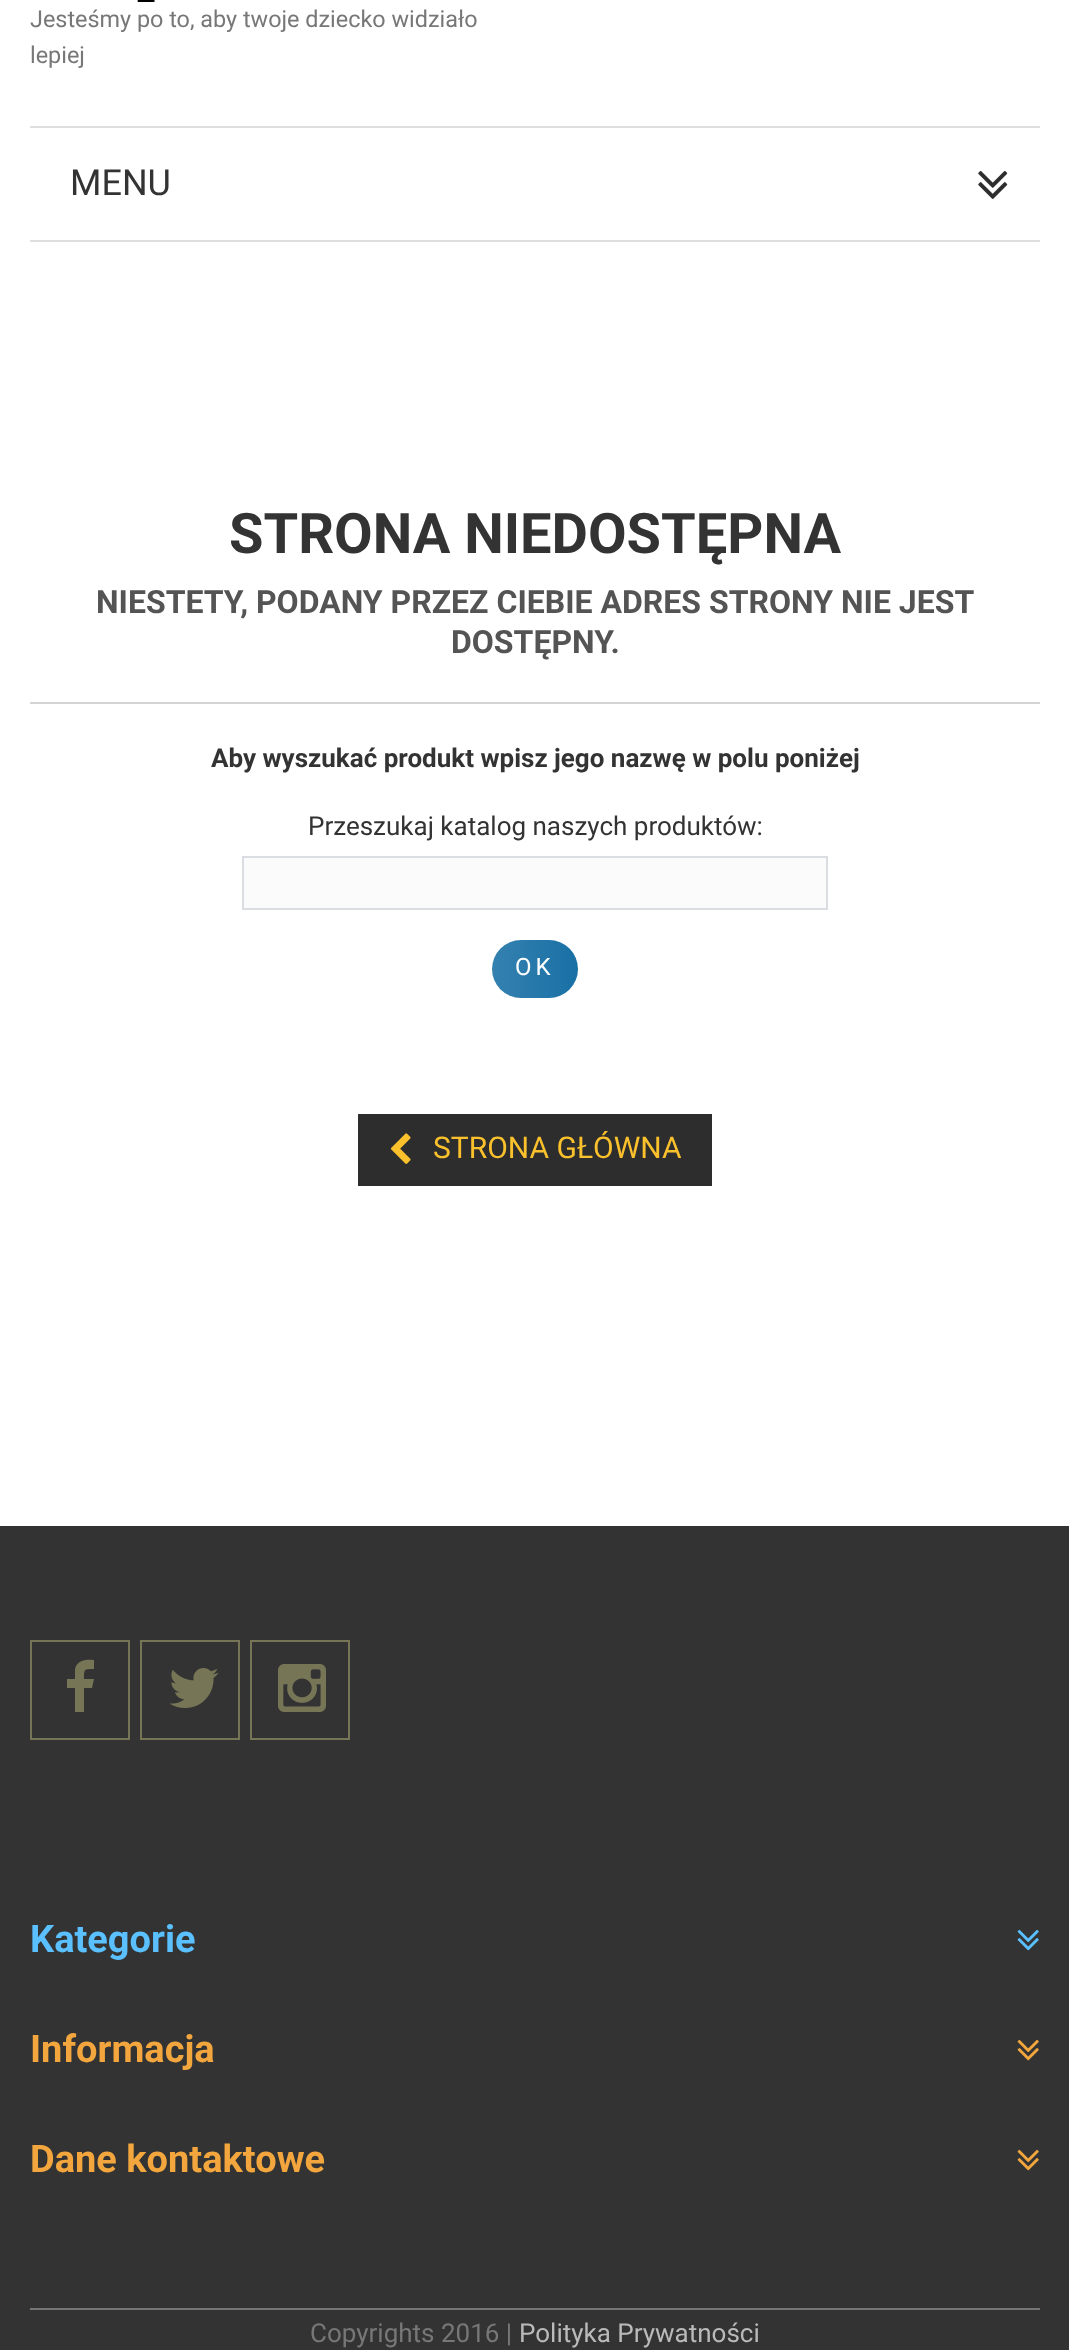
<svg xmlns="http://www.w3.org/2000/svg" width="1069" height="2350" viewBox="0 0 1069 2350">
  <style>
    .t1 { font: 23.4px Roboto; fill: #777; }
    .t2 { font: 36px Roboto; fill: #333; }
    .t3 { font: bold 56px Roboto; fill: #333; }
    .t4 { font: bold 32px Roboto; fill: #555454; }
    .t5 { font: bold 26px Roboto; fill: #333; }
    .t6 { font: 26px Roboto; fill: #333; }
    .t7 { font: 24px Roboto; letter-spacing: 4px; fill: #fff; }
    .t8 { font: 30px Roboto; fill: #fac12d; }
    .t9 { font: bold 38px Roboto; fill: #5ac0ff; }
    .t10 { font: bold 38px Roboto; fill: #f2a63d; }
    .t11 { font: 26px Roboto; fill: #777; }
    .t12 { font: 26px Roboto; fill: #bababa; }
  </style>
  <defs>
    <linearGradient id="g1" gradientUnits="userSpaceOnUse" x1="578" y1="969" x2="492" y2="969"><stop offset="0" stop-color="#1970a5"/><stop offset="1" stop-color="#3481b0"/></linearGradient>
  </defs>
  <rect width="100%" height="100%" fill="#fff"/>
  <image x="137" y="0" width="18" height="2" href="images/1.png"/>
  <text x="30" y="27" class="t1">Jesteśmy po to, aby twoje dziecko widziało</text>
  <text x="30" y="63" class="t1">lepiej</text>
  <rect x="30" y="126" width="1010" height="2" fill="#dedede"/>
  <rect x="30" y="240" width="1010" height="2" fill="#dedede"/>
  <text x="70" y="195" class="t2">MENU</text>
  <image x="978" y="171" width="30" height="28" href="images/2.png"/>
  <text x="229" y="553" class="t3">STRONA NIEDOSTĘPNA</text>
  <rect x="30" y="702" width="1010" height="2" fill="#d6d4d4"/>
  <text x="96" y="613" class="t4">NIESTETY, PODANY PRZEZ CIEBIE ADRES STRONY NIE JEST</text>
  <text x="451" y="653" class="t4">DOSTĘPNY.</text>
  <text x="211" y="767" class="t5">Aby wyszukać produkt wpisz jego nazwę w polu poniżej</text>
  <text x="308" y="835" class="t6">Przeszukaj katalog naszych produktów:</text>
  <rect x="243" y="857" width="584" height="52" fill="#fbfbfb" stroke="#dadee2" stroke-width="2"/>
  <rect x="492" y="940" width="86" height="58" rx="29" fill="url(#g1)"/>
  <text x="515" y="975" class="t7">OK</text>
  <rect x="358" y="1114" width="354" height="72" fill="#2d2d2d"/>
  <image x="390" y="1133" width="21" height="31" href="images/3.png"/>
  <text x="433" y="1158" class="t8">STRONA GŁÓWNA</text>
  <rect x="0" y="1526" width="1069" height="824" fill="#333"/>
  <rect x="31" y="1641" width="98" height="98" fill="none" stroke="#767556" stroke-width="2"/>
  <path d="M94 1660V1669C84 1669 84 1669 84 1679H94L92 1688H84V1712H75V1688H67V1679H75V1669C77 1660 86 1659 94 1660Z" fill="#767556"/>
  <rect x="141" y="1641" width="98" height="98" fill="none" stroke="#767556" stroke-width="2"/>
  <image x="169" y="1668" width="50" height="40" href="images/4.png"/>
  <rect x="251" y="1641" width="98" height="98" fill="none" stroke="#767556" stroke-width="2"/>
  <image x="278" y="1664" width="48" height="48" href="images/5.png"/>
  <text x="30" y="1952" class="t9">Kategorie</text>
  <image x="1017" y="1929" width="22" height="22" href="images/6.png"/>
  <text x="30" y="2062" class="t10">Informacja</text>
  <image x="1017" y="2039" width="22" height="22" href="images/7.png"/>
  <text x="30" y="2172" class="t10">Dane kontaktowe</text>
  <image x="1017" y="2149" width="22" height="22" href="images/7.png"/>
  <rect x="30" y="2308" width="1010" height="2" fill="#757575"/>
  <text x="310" y="2342" class="t11">Copyrights 2016 |</text>
  <text x="519" y="2342" class="t12">Polityka Prywatności</text>
</svg>
